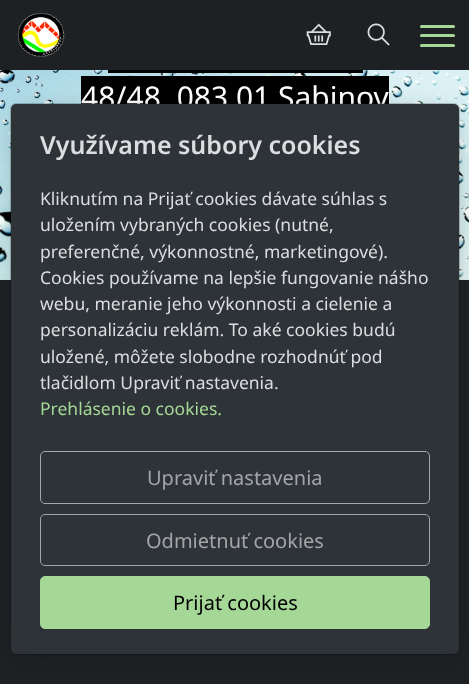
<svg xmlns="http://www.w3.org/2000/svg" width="469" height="684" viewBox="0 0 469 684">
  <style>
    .t1 { font: 30px Noto Sans; fill: #fff; }
    .t2 { font: 600 25px Noto Sans; fill: #dcdde0; }
    .t3 { font: 17.5px Noto Sans; fill: #dcdde0; }
    .t4 { font: 17.5px Noto Sans; fill: #a5d897; }
    .t5 { font: 20px Noto Sans; fill: #a3a5a8; }
    .t6 { font: 20px Noto Sans; fill: #000; }
  </style>
  <rect width="100%" height="100%" fill="#1e2124"/>
  <image x="17" y="12" width="48" height="45" href="images/1.png"/>
  <image x="306" y="23" width="25" height="22" href="images/2.png"/>
  <image x="367" y="23" width="23" height="23" href="images/3.png"/>
  <rect x="420" y="25" width="35" height="3" rx="1.5" fill="#a5d897"/>
  <rect x="420" y="34" width="35" height="3" rx="1.5" fill="#a5d897"/>
  <rect x="420" y="44" width="35" height="3" rx="1.5" fill="#a5d897"/>
  <image x="0" y="70" width="469" height="210" href="images/4.png"/>
  <rect x="81" y="76" width="308" height="28" fill="#000"/>
  <text x="81" y="108" class="t1">48/48, 083 01 Sabinov</text>
  <rect x="108" y="70" width="255" height="3" fill="#000"/>
  <rect x="23" y="118" width="425" height="527" fill="#00000080" filter="blur(12.5px)"/>
  <rect x="11" y="104" width="448" height="550" rx="5" fill="#2e3338"/>
  <rect x="10.5" y="103.5" width="449" height="551" rx="5.5" fill="none" stroke="#00000033"/>
  <text x="40" y="154" class="t2">Využívame súbory cookies</text>
  <text x="40" y="205" class="t3">Kliknutím na Prijať cookies dávate súhlas s</text>
  <text x="40" y="231" class="t3">uložením vybraných cookies (nutné,</text>
  <text x="40" y="258" class="t3">preferenčné, výkonnostné, marketingové).</text>
  <text x="40" y="284" class="t3">Cookies používame na lepšie fungovanie nášho</text>
  <text x="40" y="310" class="t3">webu, meranie jeho výkonnosti a cielenie a</text>
  <text x="40" y="336" class="t3">personalizáciu reklám. To aké cookies budú</text>
  <text x="40" y="363" class="t3">uložené, môžete slobodne rozhodnúť pod</text>
  <text x="40" y="389" class="t3">tlačidlom Upraviť nastavenia.</text>
  <text x="40" y="415" class="t4">Prehlásenie o cookies.</text>
  <rect x="40.5" y="451.5" width="389" height="52" rx="4.5" fill="none" stroke="#a3a5a8"/>
  <text x="147" y="485" class="t5">Upraviť nastavenia</text>
  <rect x="40.5" y="514.5" width="389" height="51" rx="4.5" fill="none" stroke="#a3a5a8"/>
  <text x="146" y="548" class="t5">Odmietnuť cookies</text>
  <rect x="40.5" y="576.5" width="389" height="52" rx="4.5" fill="#a5d897" stroke="#a5d897"/>
  <text x="173" y="610" class="t6">Prijať cookies</text>
</svg>
